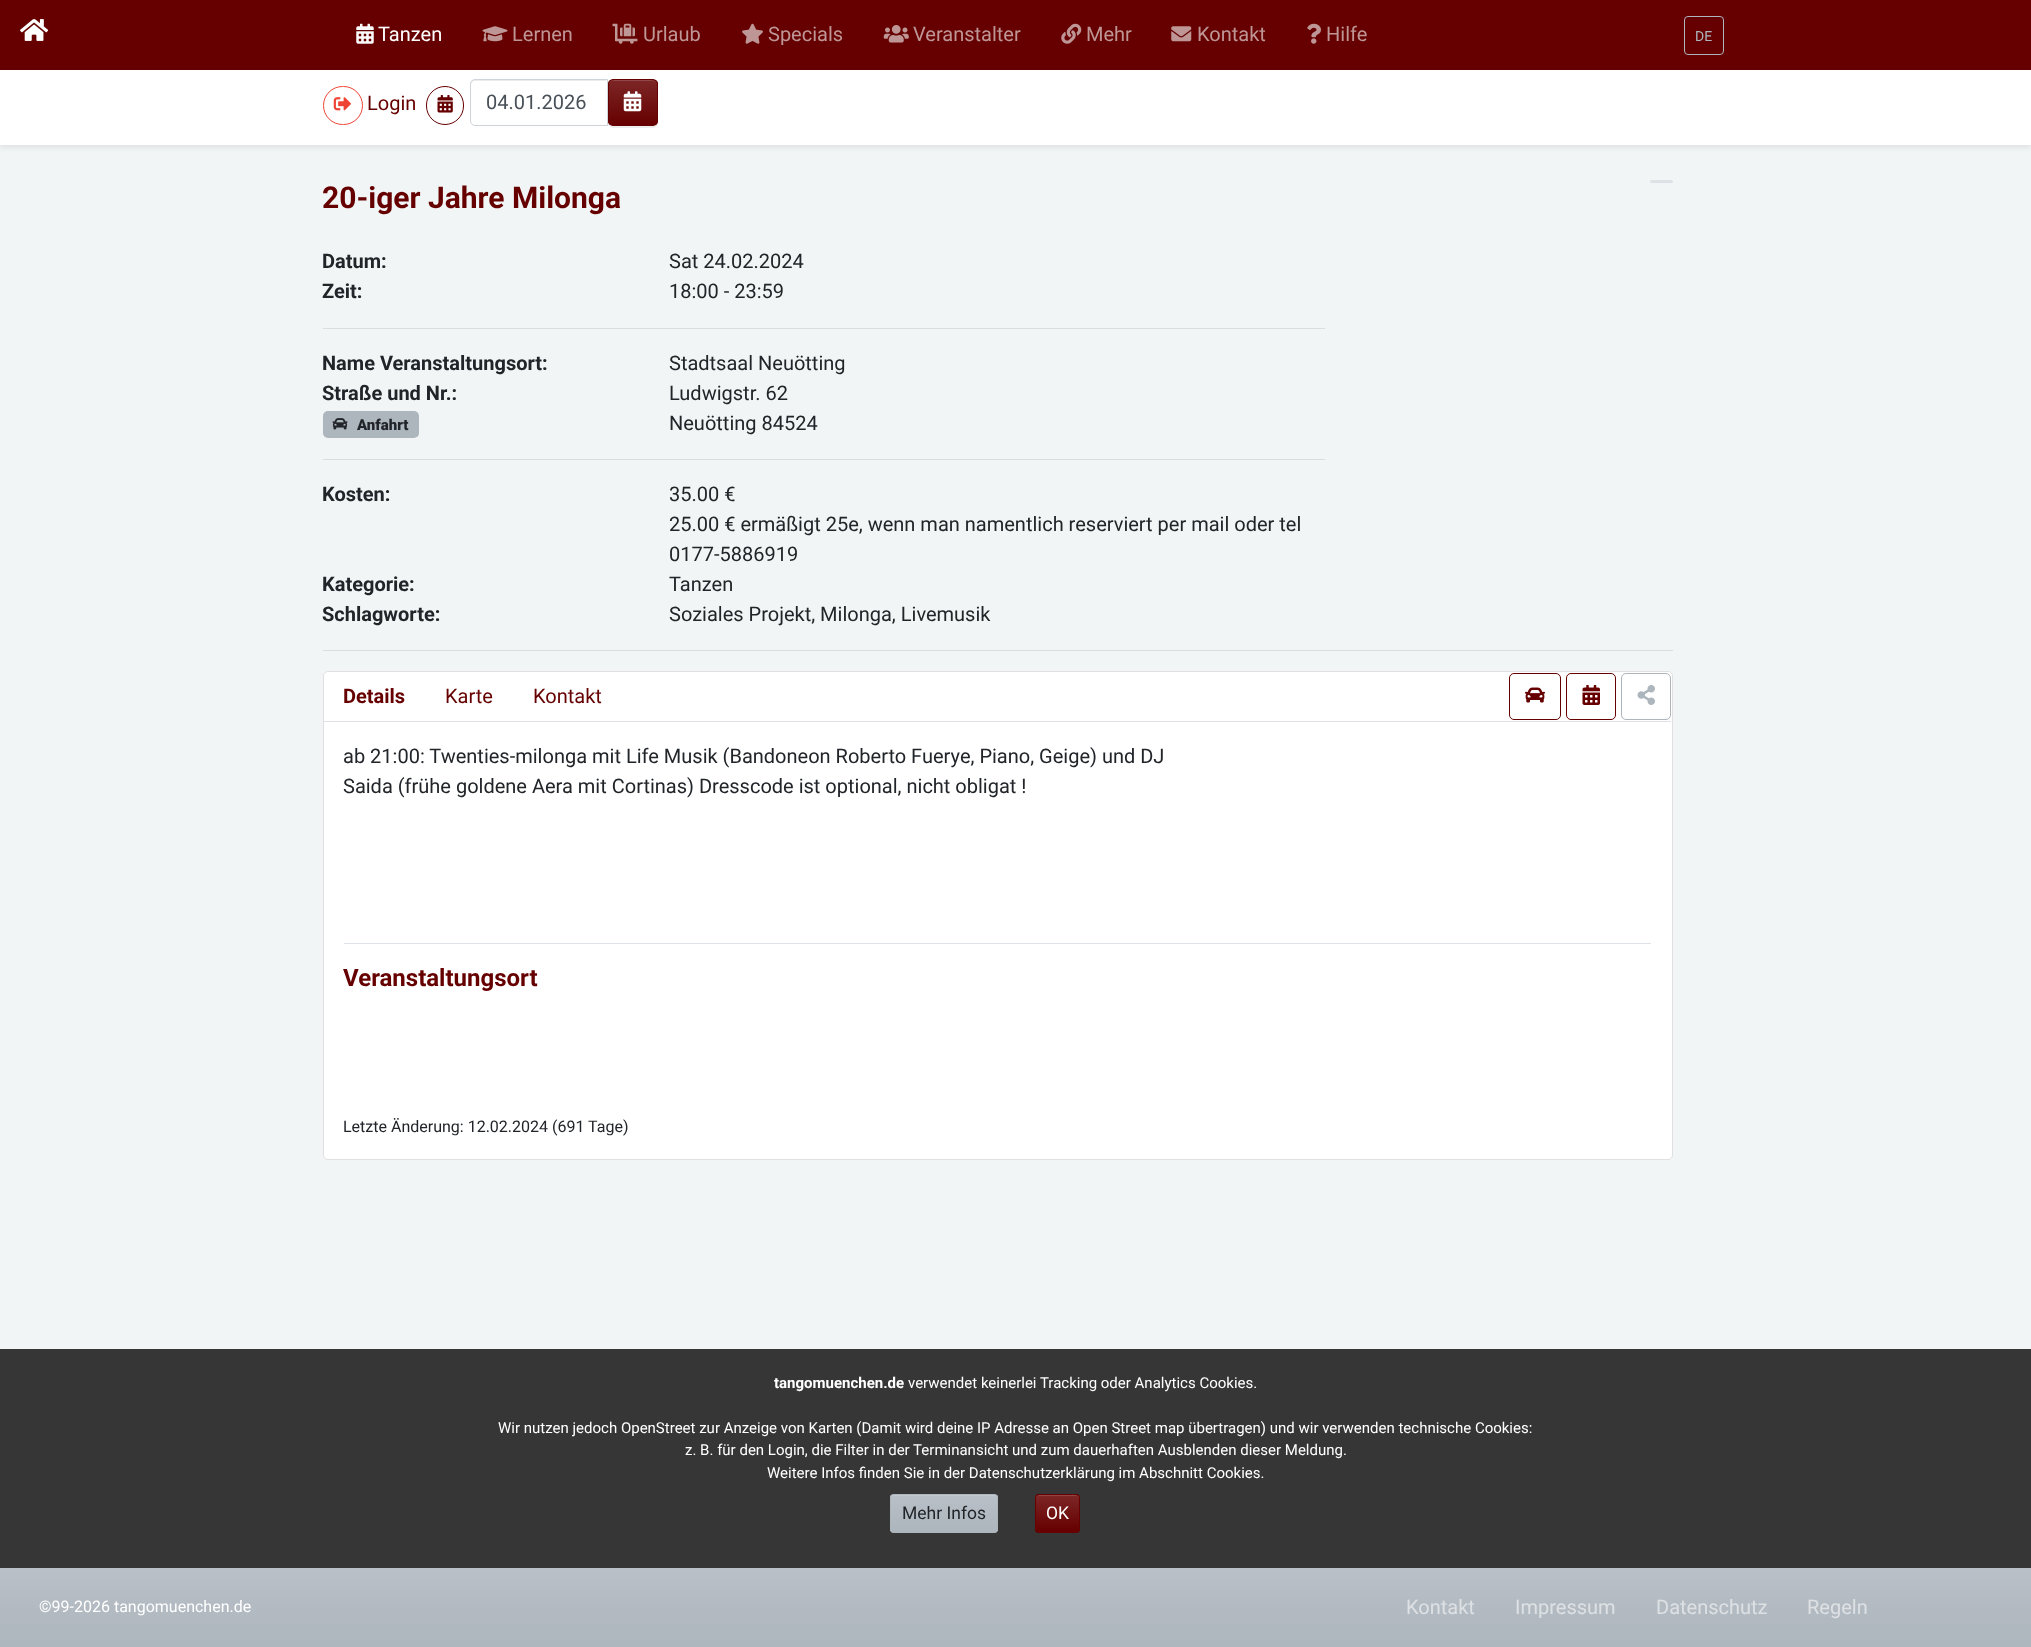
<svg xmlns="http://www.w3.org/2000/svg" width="2031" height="1647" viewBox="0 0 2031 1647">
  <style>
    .t1 { font: 20px Roboto; fill: #fff; }
    .t2 { font: 20px Roboto; fill: #bf9696; }
    .t3 { font: 14px Roboto; fill: #adb5bd; }
    .t4 { font: 20px Roboto; fill: #600; }
    .t5 { font: 20px Roboto; fill: #495057; }
    .t6 { font: bold 30px Roboto; fill: #600; }
    .t7 { font: bold 20px Roboto; fill: #212529; }
    .t8 { font: 20px Roboto; fill: #212529; }
    .t9 { font: 900 15px Roboto; fill: #212529; }
    .t10 { font: bold 20px Roboto; fill: #600; }
    .t11 { font: bold 24px Roboto; fill: #600; }
    .t12 { font: 16px Roboto; fill: #212529; }
    .t13 { font: bold 15px Roboto; fill: #fff; }
    .t14 { font: 15px Roboto; fill: #fff; }
    .t15 { font: 17.5px Roboto; fill: #212529; }
    .t16 { font: 17.5px Roboto; fill: #fff; }
    .t17 { font: 16px Roboto; fill: #fff; }
    .t18 { font: 20px Roboto; fill: #dee1e4; }
  </style>
  <defs>
    <clipPath id="clip1"><rect x="608" y="79" width="50" height="47" rx="5"/></clipPath>
    <linearGradient id="g1" gradientUnits="userSpaceOnUse" x1="633" y1="80" x2="633" y2="125"><stop offset="0" stop-color="#7d2626"/><stop offset="1" stop-color="#600"/></linearGradient>
    <clipPath id="clip2"><rect x="890" y="1494" width="108" height="39" rx="4"/></clipPath>
    <linearGradient id="g2" gradientUnits="userSpaceOnUse" x1="944" y1="1495" x2="944" y2="1531"><stop offset="0" stop-color="#b9c0c7"/><stop offset="1" stop-color="#adb5bd"/></linearGradient>
    <clipPath id="clip3"><rect x="1035" y="1494" width="45" height="39" rx="4"/></clipPath>
    <linearGradient id="g3" gradientUnits="userSpaceOnUse" x1="1058" y1="1495" x2="1058" y2="1531"><stop offset="0" stop-color="#7d2626"/><stop offset="1" stop-color="#600"/></linearGradient>
    <linearGradient id="g4" gradientUnits="userSpaceOnUse" x1="1016" y1="1568" x2="1016" y2="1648"><stop offset="0" stop-color="#b9c0c7"/><stop offset="1" stop-color="#adb5bd"/></linearGradient>
  </defs>
  <rect width="100%" height="100%" fill="#f2f5f5"/>
  <rect x="0" y="73" width="2031" height="75" fill="#00000012" filter="blur(2.5px)"/>
  <rect x="0" y="0" width="2031" height="70" fill="#600"/>
  <image x="20" y="19" width="29" height="22" href="images/1.png"/>
  <image x="356" y="23" width="18" height="21" href="images/2.png"/>
  <text x="378" y="41" class="t1">Tanzen</text>
  <image x="482" y="26" width="26" height="16" href="images/3.png"/>
  <text x="512" y="41" class="t2">Lernen</text>
  <image x="612" y="23" width="26" height="21" href="images/4.png"/>
  <text x="643" y="41" class="t2">Urlaub</text>
  <image x="742" y="23" width="21" height="21" href="images/5.png"/>
  <text x="768" y="41" class="t2">Specials</text>
  <image x="883" y="25" width="26" height="18" href="images/6.png"/>
  <text x="913" y="41" class="t2">Veranstalter</text>
  <image x="1061" y="23" width="21" height="21" href="images/7.png"/>
  <text x="1086" y="41" class="t2">Mehr</text>
  <image x="1171" y="26" width="21" height="16" href="images/8.png"/>
  <text x="1197" y="41" class="t2">Kontakt</text>
  <image x="1307" y="23" width="14" height="21" href="images/9.png"/>
  <text x="1326" y="41" class="t2">Hilfe</text>
  <rect x="1684.5" y="16.5" width="39" height="38" rx="3.5" fill="none" stroke="#adb5bd"/>
  <text x="1695" y="41" class="t3">DE</text>
  <rect x="0" y="70" width="2031" height="75" fill="#fff"/>
  <rect x="323.5" y="86.5" width="39" height="38" rx="19" fill="none" stroke="#e43"/>
  <image x="333" y="97" width="18" height="14" href="images/10.png"/>
  <text x="367" y="110" class="t4">Login</text>
  <rect x="426.5" y="86.5" width="37" height="38" rx="18.5" fill="none" stroke="#600"/>
  <image x="437" y="95" width="16" height="18" href="images/11.png"/>
  <rect x="608" y="80" width="50" height="48" rx="5" fill="#00000012" filter="blur(0.5px)"/>
  <path d="M475 81H606V80H475C473 80 471 82 471 84V85C471 83 473 81 475 81Z" fill="#ececec"/>
  <path d="M475 79.5H607.5V125.5H475C472.5 125.5 470.5 123.5 470.5 121V84C470.5 81.5 472.5 79.5 475 79.5Z" fill="none" stroke="#ced4da"/>
  <text x="486" y="109" class="t5">04.01.2026</text>
  <g clip-path="url(#clip1)">
    <rect x="608" y="80" width="50" height="45" fill="url(#g1)"/>
  </g>
  <path d="M612 81H652C655 81 656 83 656 85C656 79 650 80 646 80H620C615 80 609 79 609 85C609 83 610 81 612 81Z" fill="#914747"/>
  <rect x="608.5" y="79.5" width="49" height="46" rx="4.5" fill="none" stroke="#600"/>
  <image x="623" y="91" width="19" height="21" href="images/12.png"/>
  <rect x="1650" y="180" width="23" height="3" rx="1.5" fill="#dee2e6"/>
  <text x="322" y="208" class="t6">20-iger Jahre Milonga</text>
  <text x="322" y="268" class="t7">Datum:</text>
  <text x="669" y="268" class="t8">Sat 24.02.2024</text>
  <text x="322" y="298" class="t7">Zeit:</text>
  <text x="669" y="298" class="t8">18:00 - 23:59</text>
  <rect x="323" y="328" width="1002" height="1" fill="#dadddd"/>
  <text x="322" y="370" class="t7">Name Veranstaltungsort:</text>
  <text x="669" y="370" class="t8">Stadtsaal Neuötting</text>
  <text x="322" y="400" class="t7">Straße und Nr.:</text>
  <rect x="323" y="411" width="96" height="27" rx="5" fill="#adb5bd"/>
  <image x="332" y="418" width="16" height="12" href="images/13.png"/>
  <text x="357" y="430" class="t9">Anfahrt</text>
  <text x="669" y="400" class="t8">Ludwigstr. 62</text>
  <text x="669" y="430" class="t8">Neuötting 84524</text>
  <rect x="323" y="459" width="1002" height="1" fill="#dadddd"/>
  <text x="322" y="501" class="t7">Kosten:</text>
  <text x="669" y="501" class="t8">35.00 €</text>
  <text x="669" y="531" class="t8">25.00 € ermäßigt 25e, wenn man namentlich reserviert per mail oder tel</text>
  <text x="669" y="561" class="t8">0177-5886919</text>
  <text x="322" y="591" class="t7">Kategorie:</text>
  <text x="669" y="591" class="t8">Tanzen</text>
  <text x="322" y="621" class="t7">Schlagworte:</text>
  <text x="669" y="621" class="t8">Soziales Projekt, Milonga, Livemusik</text>
  <rect x="323" y="650" width="1350" height="1" fill="#dadddd"/>
  <rect x="323" y="671" width="1350" height="489" rx="5" fill="#fff"/>
  <rect x="323.5" y="671.5" width="1349" height="488" rx="4.5" fill="none" stroke="#0000001f"/>
  <rect x="324" y="721" width="1347" height="1" fill="#dee2e6"/>
  <text x="343" y="703" class="t10">Details</text>
  <text x="445" y="703" class="t4">Karte</text>
  <text x="533" y="703" class="t4">Kontakt</text>
  <rect x="1509.5" y="673.5" width="51" height="46" rx="4.5" fill="none" stroke="#600"/>
  <image x="1525" y="687" width="20" height="16" href="images/14.png"/>
  <rect x="1566.5" y="673.5" width="49" height="46" rx="4.5" fill="none" stroke="#600"/>
  <image x="1582" y="685" width="18" height="20" href="images/15.png"/>
  <rect x="1621.5" y="673.5" width="49" height="46" rx="4.5" fill="none" stroke="#adb5bd"/>
  <image x="1637" y="685" width="18" height="20" href="images/16.png"/>
  <text x="343" y="763" class="t8">ab 21:00: Twenties-milonga mit Life Musik (Bandoneon Roberto Fuerye, Piano, Geige) und DJ</text>
  <text x="343" y="793" class="t8">Saida (frühe goldene Aera mit Cortinas) Dresscode ist optional, nicht obligat !</text>
  <rect x="344" y="943" width="1307" height="1" fill="#dee2e6"/>
  <text x="343" y="986" class="t11">Veranstaltungsort</text>
  <text x="343" y="1132" class="t12">Letzte Änderung: 12.02.2024 (691 Tage)</text>
  <rect x="0" y="1349" width="2031" height="219" fill="#363636"/>
  <text x="774" y="1388" class="t13">tangomuenchen.de</text>
  <text x="908" y="1388" class="t14">verwendet keinerlei Tracking oder Analytics Cookies.</text>
  <text x="498" y="1433" class="t14">Wir nutzen jedoch OpenStreet zur Anzeige von Karten (Damit wird deine IP Adresse an Open Street map übertragen) und wir verwenden technische Cookies:</text>
  <text x="685" y="1455" class="t14">z. B. für den Login, die Filter in der Terminansicht und zum dauerhaften Ausblenden dieser Meldung.</text>
  <text x="767" y="1478" class="t14">Weitere Infos finden Sie in der Datenschutzerklärung im Abschnitt Cookies.</text>
  <rect x="890" y="1494" width="108" height="39" rx="4" fill="#adb5bd"/>
  <g clip-path="url(#clip2)">
    <rect x="890" y="1495" width="108" height="36" fill="url(#g2)"/>
  </g>
  <path d="M894 1496H994C995 1496 996 1497 996 1499V1498C996 1496 995 1495 994 1495H894C892 1495 891 1496 891 1498V1499C891 1497 892 1496 894 1496Z" fill="#c4c9cf"/>
  <rect x="890.5" y="1494.5" width="107" height="38" rx="3.5" fill="none" stroke="#adb5bd"/>
  <text x="902" y="1519" class="t15">Mehr Infos</text>
  <rect x="1035" y="1494" width="45" height="39" rx="4" fill="#600"/>
  <g clip-path="url(#clip3)">
    <rect x="1035" y="1495" width="45" height="36" fill="url(#g3)"/>
  </g>
  <path d="M1039 1496H1076C1078 1496 1079 1497 1079 1499C1079 1494 1075 1495 1070 1495H1045C1040 1495 1036 1494 1036 1499C1036 1497 1037 1496 1039 1496Z" fill="#914646"/>
  <rect x="1035.5" y="1494.5" width="44" height="38" rx="3.5" fill="none" stroke="#600"/>
  <text x="1046" y="1519" class="t16">OK</text>
  <rect x="0" y="1568" width="2031" height="79" fill="url(#g4)"/>
  <text x="39" y="1612" class="t17">©99-2026 tangomuenchen.de</text>
  <text x="1406" y="1614" class="t18">Kontakt</text>
  <text x="1515" y="1614" class="t18">Impressum</text>
  <text x="1656" y="1614" class="t18">Datenschutz</text>
  <text x="1807" y="1614" class="t18">Regeln</text>
</svg>
